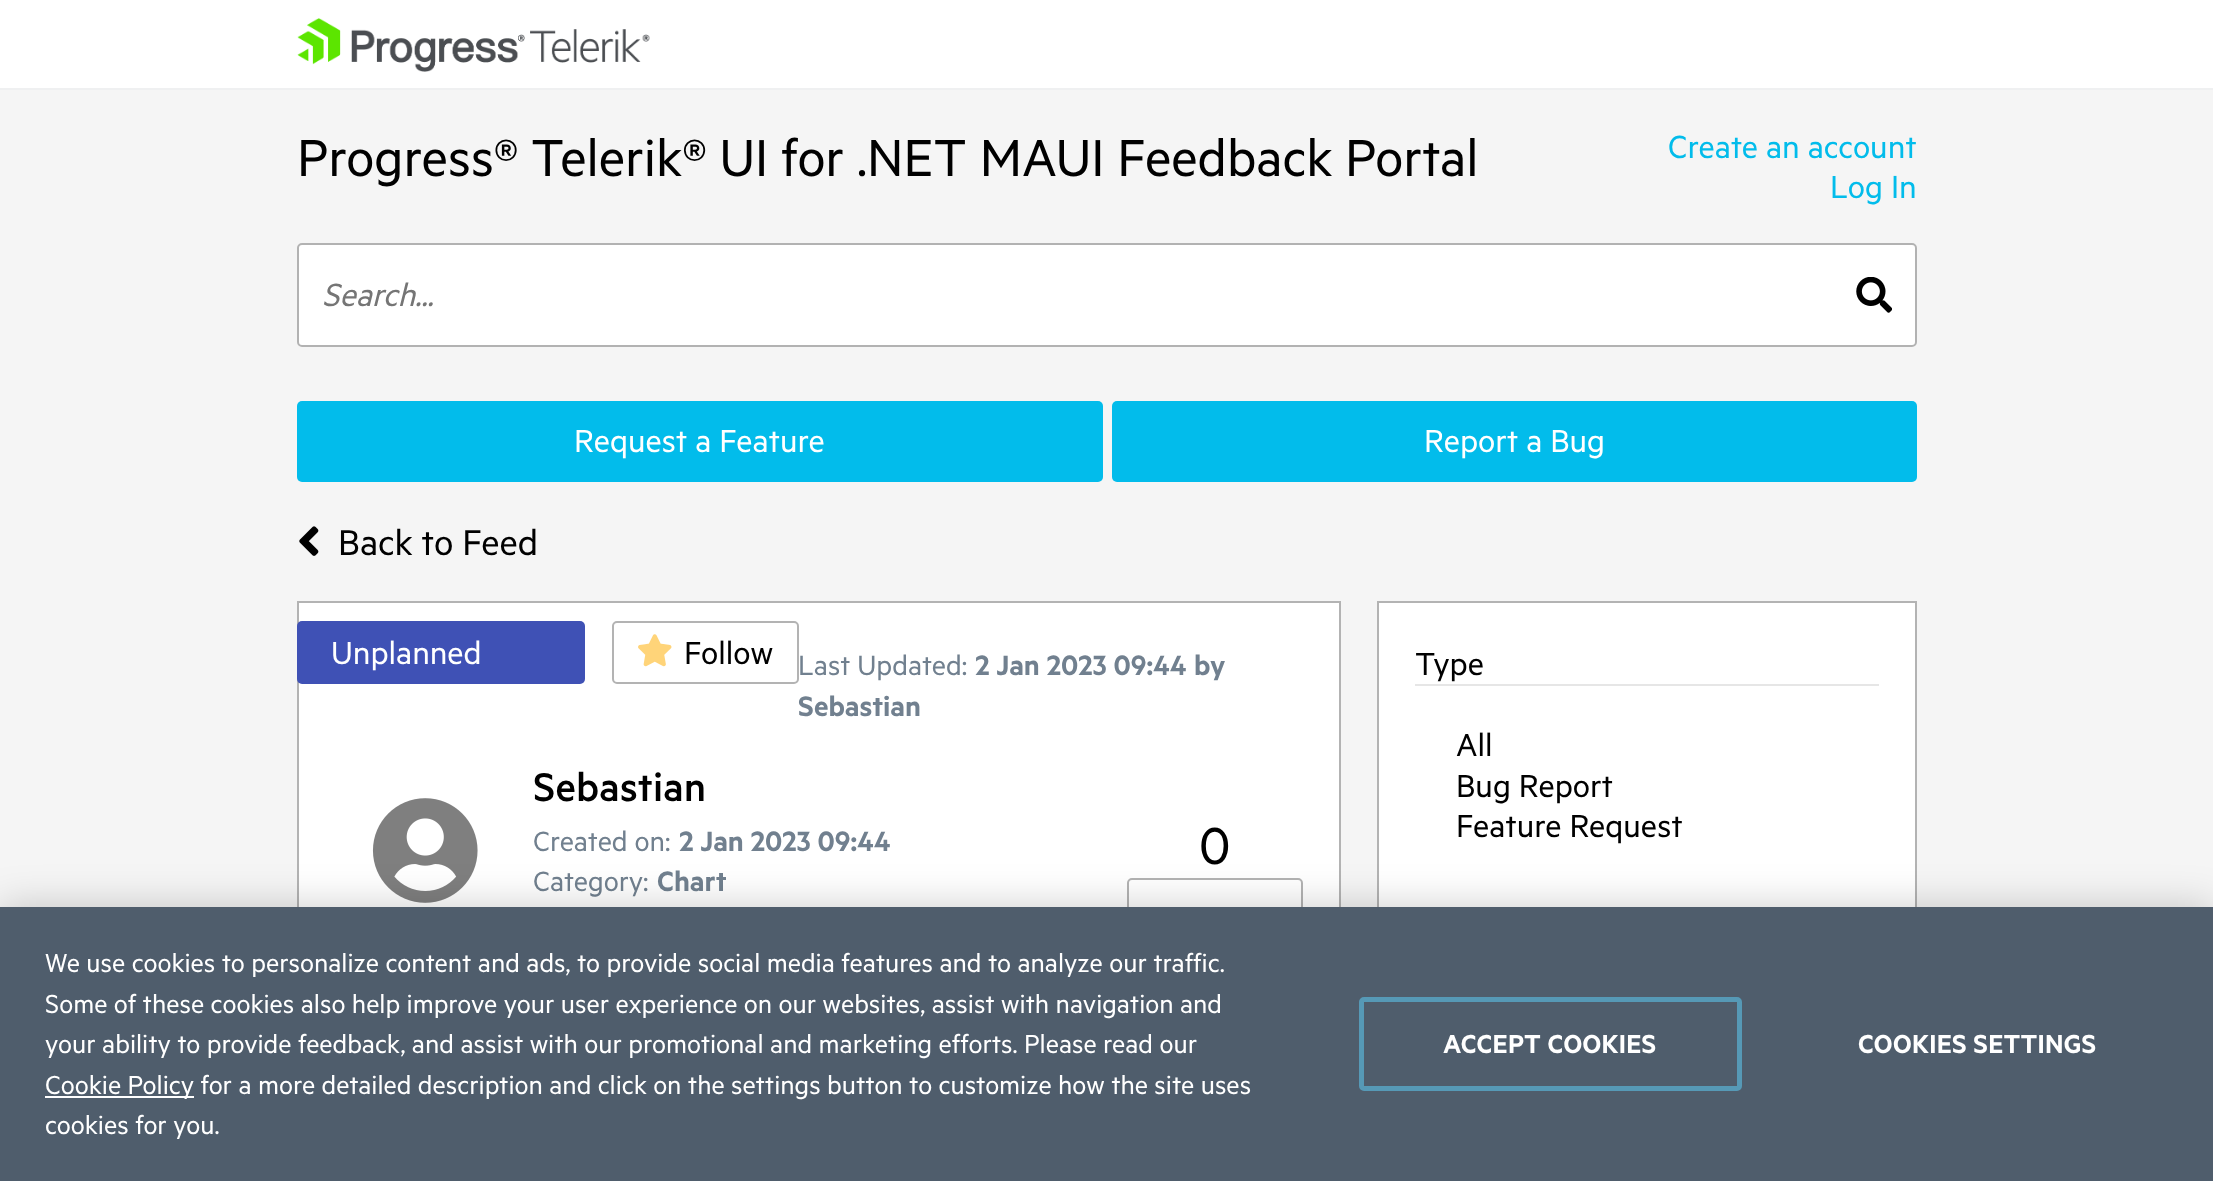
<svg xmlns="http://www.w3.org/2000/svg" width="2213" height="1181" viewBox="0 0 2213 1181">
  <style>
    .t1 { font: 58.5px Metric; fill: #000; }
    .t2 { font: 36px Metric; fill: #02bceb; }
    .t3 { font: italic 36px Metric; fill: #757575; }
    .t4 { font: 36px Metric; fill: #fff; }
    .t5 { font: 40.5px Metric; fill: #000; }
    .t6 { font: 36px Metric; fill: #000; }
    .t7 { font: 31.5px Metric; fill: #71808f; }
    .t8 { font: 600 31.5px Metric; fill: #71808f; }
    .t9 { font: 500 45px Metric; fill: #000; }
    .t10 { font: 29.25px Metric; fill: #fff; }
    .t11 { font: 600 29.25px Metric; letter-spacing: 0.25px; fill: #fff; }
  </style>
  <rect width="100%" height="100%" fill="#f5f5f5"/>
  <rect x="0" y="0" width="2213" height="88" fill="#fff"/>
  <rect x="0" y="88" width="2213" height="2" fill="#eff0f1"/>
  <image x="297" y="18" width="353" height="54" href="images/1.png"/>
  <text x="297" y="176" class="t1">Progress® Telerik® UI for .NET MAUI Feedback Portal</text>
  <text x="1668" y="158" class="t2">Create an account</text>
  <text x="1830" y="198" class="t2">Log In</text>
  <rect x="297" y="243" width="1620" height="104" rx="5" fill="#fff"/>
  <rect x="298" y="244" width="1618" height="102" rx="4" fill="none" stroke="#0000004d" stroke-width="2"/>
  <text x="322" y="306" class="t3">Search...</text>
  <image x="1856" y="277" width="36" height="36" href="images/2.png"/>
  <rect x="297" y="401" width="806" height="81" rx="5" fill="#02bceb"/>
  <text x="574" y="452" class="t4">Request a Feature</text>
  <rect x="1112" y="401" width="805" height="81" rx="5" fill="#02bceb"/>
  <text x="1424" y="452" class="t4">Report a Bug</text>
  <image x="299" y="526" width="20" height="30" href="images/3.png"/>
  <text x="338" y="555" class="t5">Back to Feed</text>
  <rect x="299" y="603" width="1040" height="304" fill="#fff"/>
  <rect x="298" y="602" width="1042" height="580" fill="none" stroke="#b3b3b3" stroke-width="2"/>
  <rect x="297" y="621" width="288" height="63" rx="5" fill="#3f51b5"/>
  <text x="331" y="664" class="t4">Unplanned</text>
  <rect x="613" y="622" width="185" height="61" rx="4" fill="none" stroke="#b3b3b3" stroke-width="2"/>
  <image x="638" y="634" width="34" height="33" href="images/4.png"/>
  <text x="684" y="664" class="t6">Follow</text>
  <text x="798" y="675" class="t7">Last Updated:</text>
  <text x="975" y="675" class="t8">2 Jan 2023 09:44</text>
  <text x="1194" y="675" class="t8">by</text>
  <text x="798" y="716" class="t8">Sebastian</text>
  <image x="372" y="798" width="106" height="105" href="images/5.png"/>
  <text x="533" y="801" class="t9">Sebastian</text>
  <text x="533" y="851" class="t7">Created on:</text>
  <text x="679" y="851" class="t8">2 Jan 2023 09:44</text>
  <text x="533" y="891" class="t7">Category:</text>
  <text x="657" y="891" class="t8">Chart</text>
  <text x="1199" y="864" class="t1">0</text>
  <rect x="1128" y="879" width="174" height="61" rx="4" fill="none" stroke="#b3b3b3" stroke-width="2"/>
  <rect x="1379" y="603" width="536" height="304" fill="#fff"/>
  <rect x="1378" y="602" width="538" height="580" fill="none" stroke="#b3b3b3" stroke-width="2"/>
  <rect x="1415" y="684" width="464" height="2" fill="#e6e6e6"/>
  <text x="1415" y="675" class="t6">Type</text>
  <text x="1456" y="756" class="t6">All</text>
  <text x="1456" y="797" class="t6">Bug Report</text>
  <text x="1456" y="837" class="t6">Feature Request</text>
  <rect x="0" y="907" width="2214" height="274" fill="#00000033" filter="blur(20px)"/>
  <rect x="0" y="907" width="2213" height="274" fill="#4f5d6c"/>
  <text x="45" y="972" class="t10">We use cookies to personalize content and ads, to provide social media features and to analyze our traffic.</text>
  <text x="45" y="1013" class="t10">Some of these cookies also help improve your user experience on our websites, assist with navigation and</text>
  <text x="45" y="1053" class="t10">your ability to provide feedback, and assist with our promotional and marketing efforts. Please read our</text>
  <rect x="45" y="1096" width="149" height="2" fill="#fff"/>
  <text x="45" y="1094" class="t10">Cookie Policy for a more detailed description and click on the settings button to customize how the site uses</text>
  <text x="45" y="1134" class="t10">cookies for you.</text>
  <rect x="1361.5" y="999.5" width="378" height="89" rx="2.5" fill="none" stroke="#5699b6" stroke-width="5"/>
  <text x="1443" y="1053" class="t11">ACCEPT COOKIES</text>
  <text x="1858" y="1053" class="t11">COOKIES SETTINGS</text>
</svg>
